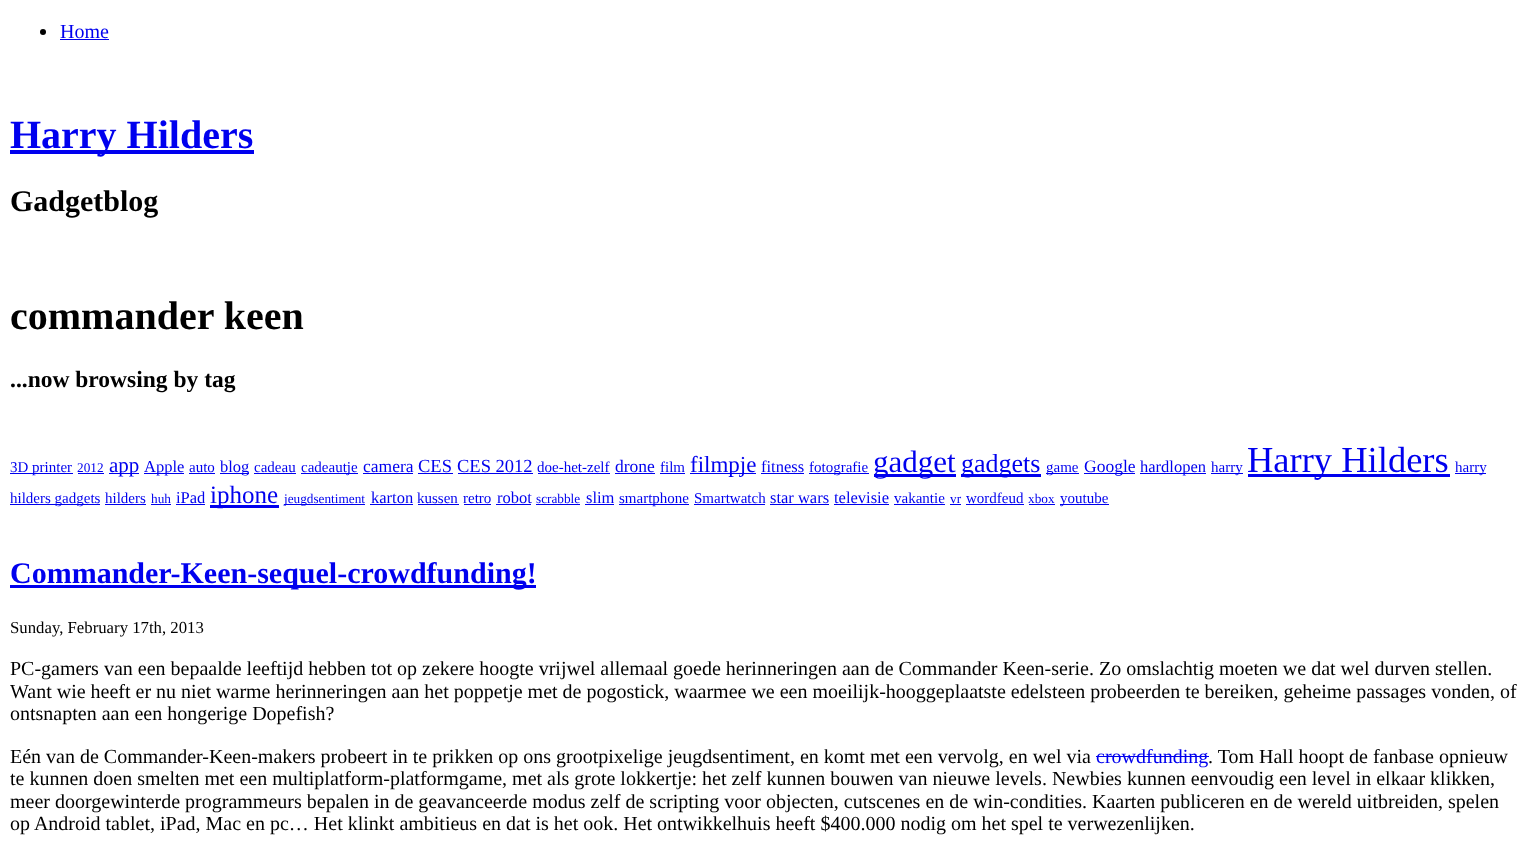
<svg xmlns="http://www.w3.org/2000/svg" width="1530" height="844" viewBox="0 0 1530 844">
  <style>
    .t1 { font: 20px Liberation Serif; fill: #00e; }
    .t2 { font: bold 40px Liberation Serif; fill: #00e; }
    .t3 { font: bold 30px Liberation Serif; fill: #000; }
    .t4 { font: bold 40px Liberation Serif; fill: #000; }
    .t5 { font: bold 23.5px Liberation Serif; fill: #000; }
    .t6 { font: 15px Liberation Serif; fill: #00e; }
    .t7 { font: 13.25px Liberation Serif; fill: #00e; }
    .t8 { font: 21px Liberation Serif; fill: #00e; }
    .t9 { font: 16.5px Liberation Serif; fill: #00e; }
    .t10 { font: 17.5px Liberation Serif; fill: #00e; }
    .t11 { font: 18.5px Liberation Serif; fill: #00e; }
    .t12 { font: 23px Liberation Serif; fill: #00e; }
    .t13 { font: 31px Liberation Serif; fill: #00e; }
    .t14 { font: 26px Liberation Serif; fill: #00e; }
    .t15 { font: 36.5px Liberation Serif; fill: #00e; }
    .t16 { font: 25px Liberation Serif; fill: #00e; }
    .t17 { font: bold 30px Liberation Serif; fill: #00e; }
    .t18 { font: 16.75px Liberation Serif; fill: #000; }
    .t19 { font: 20px Liberation Serif; fill: #000; }
  </style>
  <rect width="100%" height="100%" fill="#fff"/>
  <circle cx="43" cy="32" r="3" fill="#000"/>
  <text x="60" y="38" class="t1">Home</text>
  <rect x="60" y="39" width="49" height="1" fill="#00e"/>
  <rect x="10" y="150" width="244" height="4" fill="#00e"/>
  <text x="10" y="148" class="t2">Harry Hilders</text>
  <text x="10" y="211" class="t3">Gadgetblog</text>
  <text x="10" y="329" class="t4">commander keen</text>
  <text x="10" y="387" class="t5">...now browsing by tag</text>
  <rect x="10" y="473" width="63" height="1" fill="#00e"/>
  <text x="10" y="472" class="t6">3D printer</text>
  <text x="77" y="472" class="t7">2012</text>
  <rect x="78" y="473" width="26" height="1" fill="#00e"/>
  <rect x="109" y="473" width="30" height="1" fill="#00e"/>
  <text x="109" y="472" class="t8">app</text>
  <rect x="144" y="473" width="40" height="1" fill="#00e"/>
  <text x="144" y="472" class="t9">Apple</text>
  <text x="189" y="472" class="t6">auto</text>
  <rect x="189" y="473" width="26" height="1" fill="#00e"/>
  <rect x="220" y="473" width="29" height="1" fill="#00e"/>
  <text x="220" y="472" class="t9">blog</text>
  <text x="254" y="472" class="t6">cadeau</text>
  <rect x="254" y="473" width="42" height="1" fill="#00e"/>
  <rect x="301" y="473" width="57" height="1" fill="#00e"/>
  <text x="301" y="472" class="t6">cadeautje</text>
  <text x="363" y="472" class="t10">camera</text>
  <rect x="363" y="473" width="50" height="1" fill="#00e"/>
  <text x="418" y="472" class="t11">CES</text>
  <rect x="418" y="473" width="35" height="1" fill="#00e"/>
  <text x="457" y="472" class="t11">CES 2012</text>
  <rect x="458" y="473" width="75" height="1" fill="#00e"/>
  <text x="537" y="472" class="t6">doe-het-zelf</text>
  <rect x="538" y="473" width="72" height="1" fill="#00e"/>
  <text x="615" y="472" class="t10">drone</text>
  <rect x="615" y="473" width="40" height="1" fill="#00e"/>
  <text x="660" y="472" class="t6">film</text>
  <rect x="660" y="473" width="25" height="1" fill="#00e"/>
  <rect x="690" y="473" width="66" height="1" fill="#00e"/>
  <text x="690" y="472" class="t12">filmpje</text>
  <text x="761" y="472" class="t9">fitness</text>
  <rect x="761" y="473" width="43" height="1" fill="#00e"/>
  <rect x="809" y="473" width="60" height="1" fill="#00e"/>
  <text x="809" y="472" class="t6">fotografie</text>
  <rect x="874" y="474" width="82" height="3" fill="#00e"/>
  <text x="873" y="472" class="t13">gadget</text>
  <rect x="961" y="474" width="80" height="3" fill="#00e"/>
  <text x="961" y="472" class="t14">gadgets</text>
  <rect x="1046" y="473" width="33" height="1" fill="#00e"/>
  <text x="1046" y="472" class="t6">game</text>
  <rect x="1084" y="473" width="51" height="1" fill="#00e"/>
  <text x="1084" y="472" class="t10">Google</text>
  <rect x="1140" y="473" width="66" height="1" fill="#00e"/>
  <text x="1140" y="472" class="t9">hardlopen</text>
  <rect x="1211" y="473" width="32" height="1" fill="#00e"/>
  <text x="1211" y="472" class="t6">harry</text>
  <rect x="1248" y="474" width="202" height="3" fill="#00e"/>
  <text x="1247" y="472" class="t15">Harry Hilders</text>
  <rect x="1455" y="473" width="31" height="1" fill="#00e"/>
  <text x="1455" y="472" class="t6">harry</text>
  <rect x="10" y="504" width="90" height="1" fill="#00e"/>
  <text x="10" y="503" class="t6">hilders gadgets</text>
  <text x="105" y="503" class="t6">hilders</text>
  <rect x="105" y="504" width="41" height="1" fill="#00e"/>
  <text x="151" y="503" class="t7">huh</text>
  <rect x="151" y="504" width="20" height="1" fill="#00e"/>
  <text x="176" y="503" class="t9">iPad</text>
  <rect x="176" y="504" width="29" height="1" fill="#00e"/>
  <rect x="210" y="505" width="69" height="3" fill="#00e"/>
  <text x="210" y="503" class="t16">iphone</text>
  <rect x="284" y="504" width="81" height="1" fill="#00e"/>
  <text x="284" y="503" class="t7">jeugdsentiment</text>
  <text x="371" y="503" class="t9">karton</text>
  <rect x="370" y="504" width="43" height="1" fill="#00e"/>
  <text x="417" y="503" class="t6">kussen</text>
  <rect x="418" y="504" width="41" height="1" fill="#00e"/>
  <text x="463" y="503" class="t6">retro</text>
  <rect x="464" y="504" width="27" height="1" fill="#00e"/>
  <text x="497" y="503" class="t9">robot</text>
  <rect x="496" y="504" width="35" height="1" fill="#00e"/>
  <text x="536" y="503" class="t7">scrabble</text>
  <rect x="536" y="504" width="44" height="1" fill="#00e"/>
  <text x="586" y="503" class="t9">slim</text>
  <rect x="585" y="504" width="29" height="1" fill="#00e"/>
  <rect x="619" y="504" width="70" height="1" fill="#00e"/>
  <text x="619" y="503" class="t6">smartphone</text>
  <text x="694" y="503" class="t6">Smartwatch</text>
  <rect x="694" y="504" width="71" height="1" fill="#00e"/>
  <text x="770" y="503" class="t9">star wars</text>
  <rect x="770" y="504" width="59" height="1" fill="#00e"/>
  <text x="834" y="503" class="t9">televisie</text>
  <rect x="834" y="504" width="55" height="1" fill="#00e"/>
  <text x="894" y="503" class="t6">vakantie</text>
  <rect x="894" y="504" width="51" height="1" fill="#00e"/>
  <text x="950" y="503" class="t7">vr</text>
  <rect x="950" y="504" width="11" height="1" fill="#00e"/>
  <text x="966" y="503" class="t6">wordfeud</text>
  <rect x="966" y="504" width="58" height="1" fill="#00e"/>
  <text x="1028" y="503" class="t7">xbox</text>
  <rect x="1029" y="504" width="26" height="1" fill="#00e"/>
  <rect x="1060" y="504" width="49" height="1" fill="#00e"/>
  <text x="1060" y="503" class="t6">youtube</text>
  <rect x="10" y="585" width="526" height="3" fill="#00e"/>
  <text x="10" y="583" class="t17">Commander-Keen-sequel-crowdfunding!</text>
  <text x="10" y="633" class="t18">Sunday, February 17th, 2013</text>
  <text x="10" y="675" class="t19">PC-gamers van een bepaalde leeftijd hebben tot op zekere hoogte vrijwel allemaal goede herinneringen aan de Commander Keen-serie. Zo omslachtig moeten we dat wel durven stellen.</text>
  <text x="10" y="698" class="t19">Want wie heeft er nu niet warme herinneringen aan het poppetje met de pogostick, waarmee we een moeilijk-hooggeplaatste edelsteen probeerden te bereiken, geheime passages vonden, of</text>
  <text x="10" y="720" class="t19">ontsnapten aan een hongerige Dopefish?</text>
  <text x="10" y="763" class="t19">Eén van de Commander-Keen-makers probeert in te prikken op ons grootpixelige jeugdsentiment, en komt met een vervolg, en wel via</text>
  <text x="1096" y="763" class="t1">crowdfunding</text>
  <rect x="1096" y="756" width="113" height="1" fill="#00e"/>
  <text x="1208" y="763" class="t19">. Tom Hall hoopt de fanbase opnieuw</text>
  <text x="10" y="785" class="t19">te kunnen doen smelten met een multiplatform-platformgame, met als grote lokkertje: het zelf kunnen bouwen van nieuwe levels. Newbies kunnen eenvoudig een level in elkaar klikken,</text>
  <text x="10" y="808" class="t19">meer doorgewinterde programmeurs bepalen in de geavanceerde modus zelf de scripting voor objecten, cutscenes en de win-condities. Kaarten publiceren en de wereld uitbreiden, spelen</text>
  <text x="10" y="830" class="t19">op Android tablet, iPad, Mac en pc… Het klinkt ambitieus en dat is het ook. Het ontwikkelhuis heeft $400.000 nodig om het spel te verwezenlijken.</text>
</svg>
